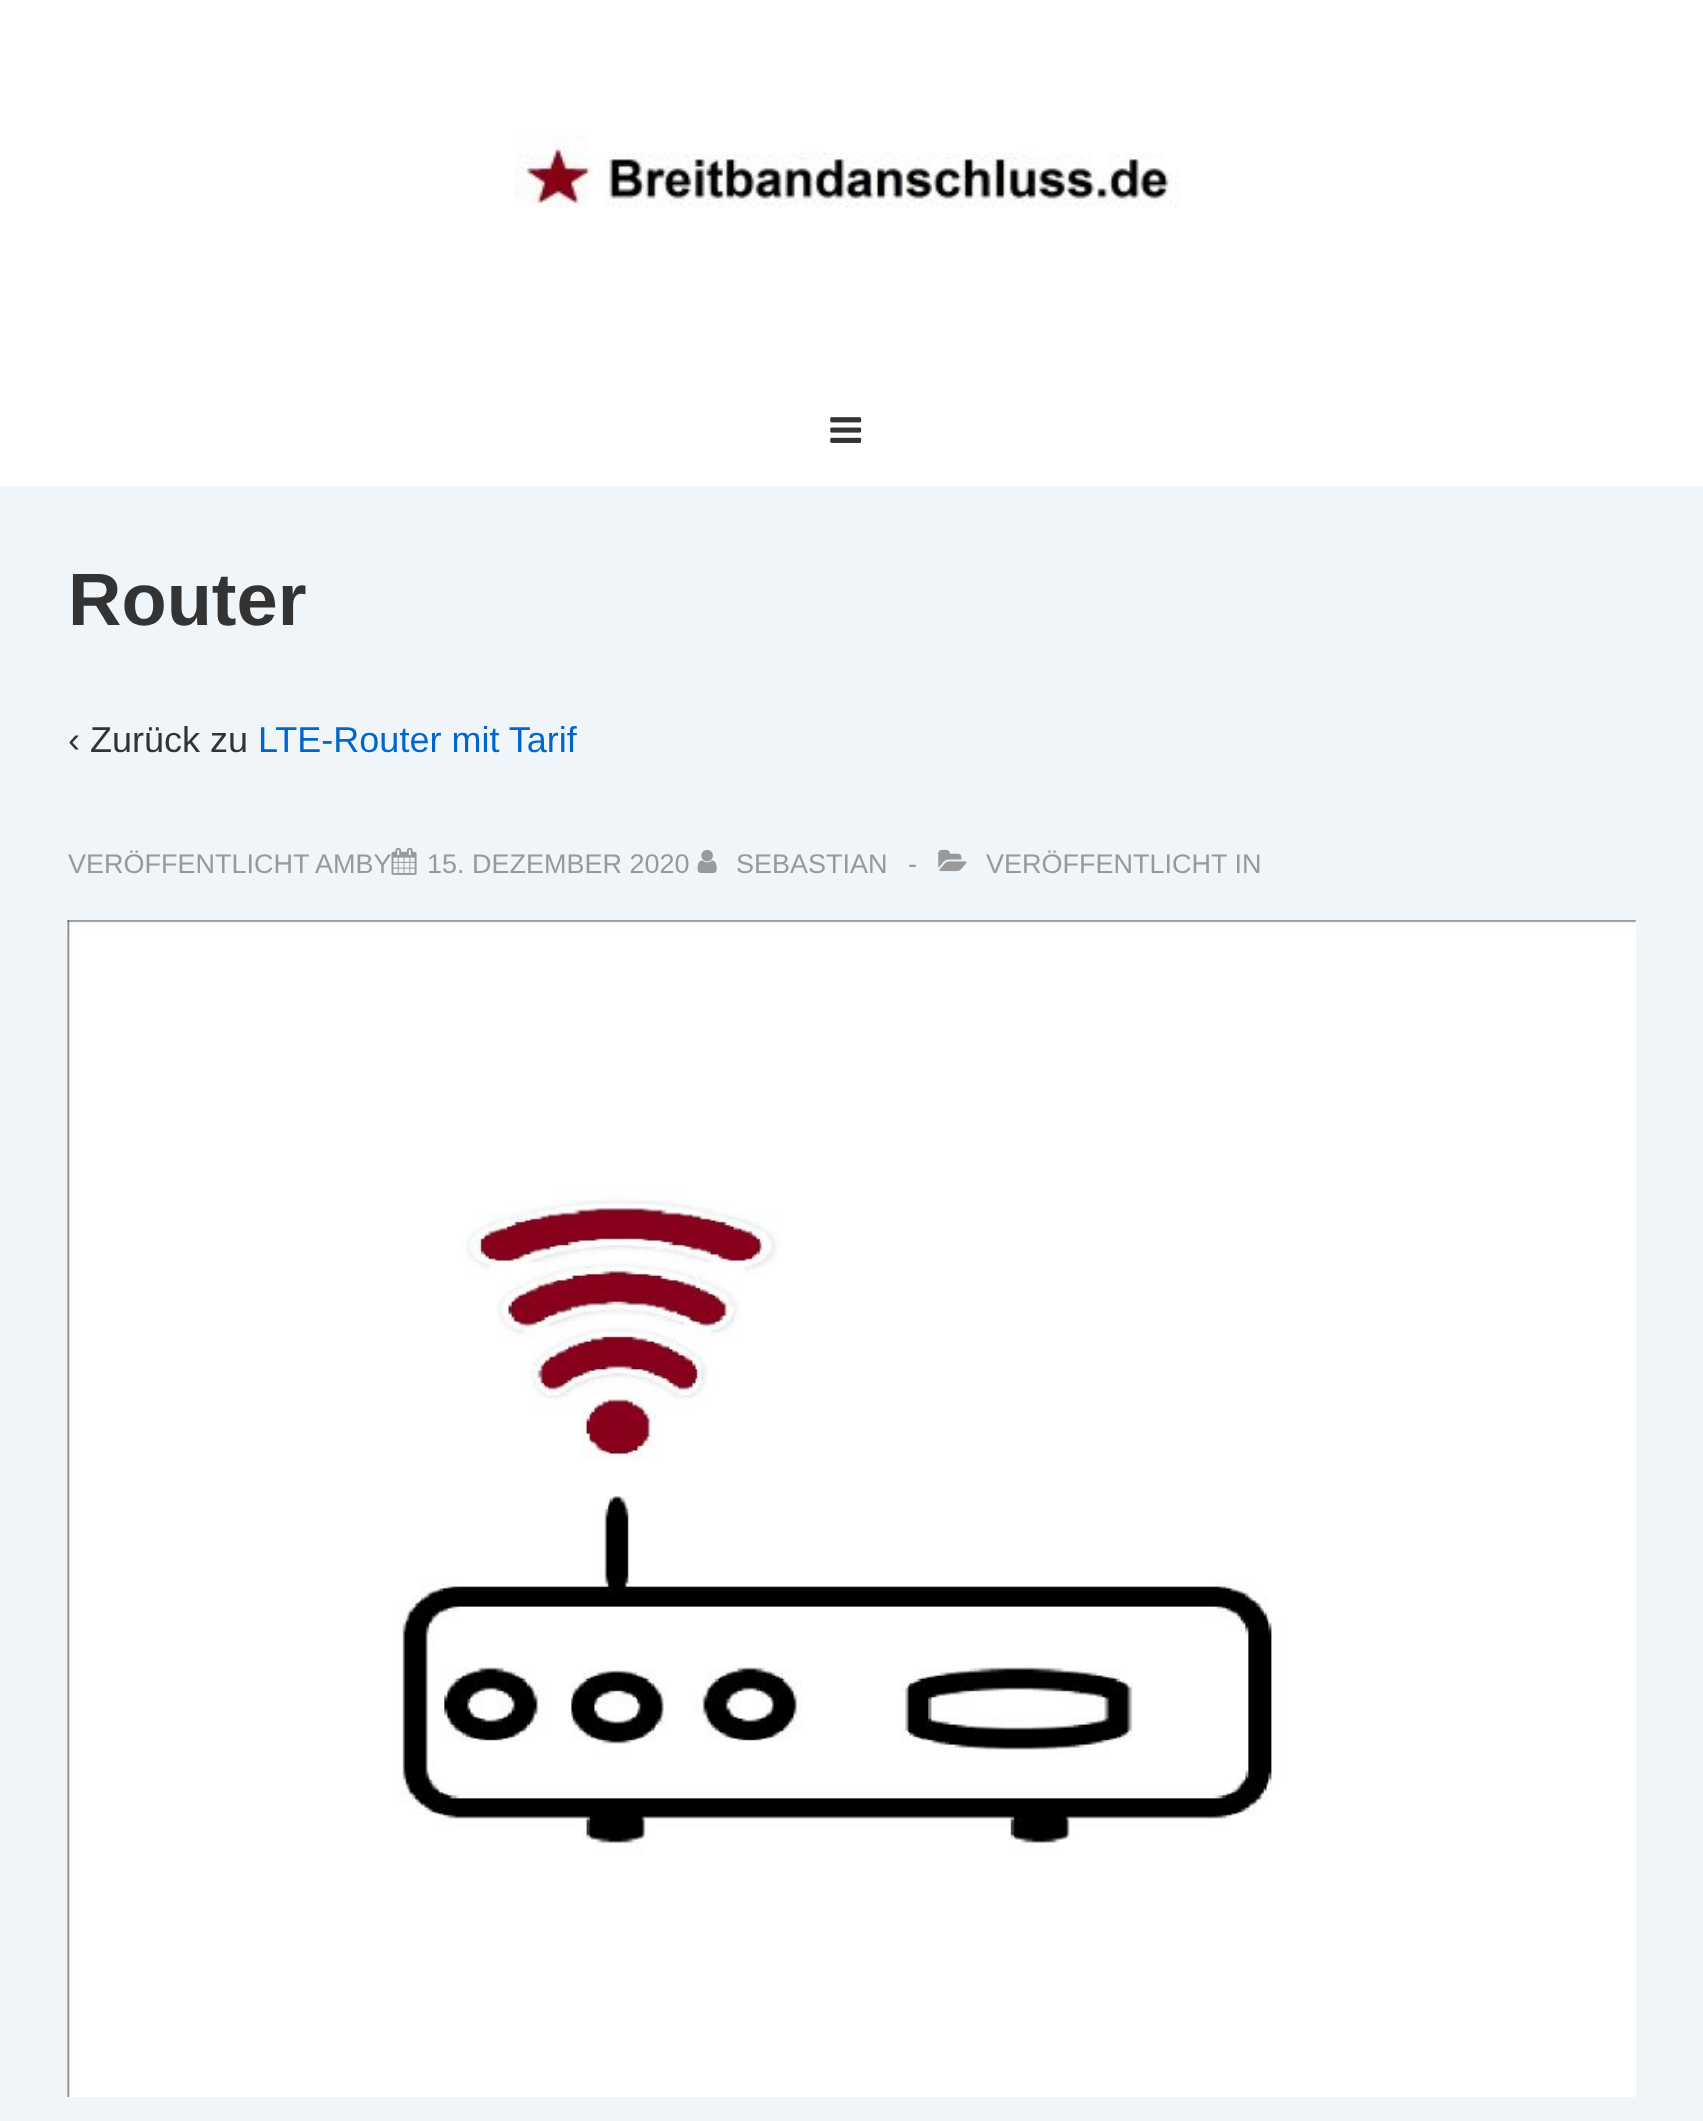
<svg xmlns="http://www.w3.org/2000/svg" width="1703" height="2121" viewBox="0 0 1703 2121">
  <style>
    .t1 { font: bold 74px Liberation Sans; fill: #333; }
    .t2 { font: 36px Liberation Sans; fill: #333; }
    .t3 { font: 36px Liberation Sans; fill: #06c; }
    .t4 { font: 27px Liberation Sans; fill: #999; }
  </style>
  <rect width="100%" height="100%" fill="#f0f5fa"/>
  <rect x="0" y="0" width="1703" height="486" fill="#fff"/>
  <image x="515" y="134" width="666" height="74" href="images/1.png"/>
  <image x="830" y="417" width="32" height="26" href="images/2.png"/>
  <text x="68" y="625" class="t1">Router</text>
  <text x="68" y="752" class="t2">‹ Zurück zu</text>
  <text x="258" y="752" class="t3">LTE-Router mit Tarif</text>
  <text x="68" y="873" class="t4">VERÖFFENTLICHT AMBY</text>
  <image x="391" y="847" width="26" height="28" href="images/3.png"/>
  <text x="427" y="873" class="t4">15. DEZEMBER 2020</text>
  <image x="697" y="849" width="20" height="24" href="images/4.png"/>
  <text x="736" y="873" class="t4">SEBASTIAN</text>
  <text x="908" y="873" class="t4">-</text>
  <image x="938" y="849" width="29" height="23" href="images/5.png"/>
  <text x="986" y="873" class="t4">VERÖFFENTLICHT IN</text>
  <image x="67" y="920" width="1569" height="1177" href="images/6.png"/>
</svg>
